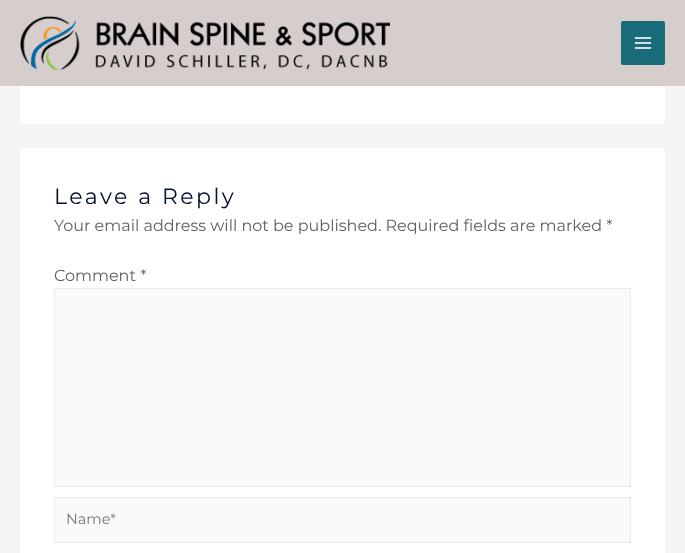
<svg xmlns="http://www.w3.org/2000/svg" width="685" height="553" viewBox="0 0 685 553">
  <style>
    .t1 { font: 22px Montserrat; letter-spacing: 2.5px; fill: #000f2b; }
    .t2 { font: 16px Montserrat; fill: #625f5f; }
    .t3 { font: 14.5px Montserrat; fill: #757575; }
  </style>
  <rect width="100%" height="100%" fill="#f5f5f5"/>
  <rect x="0" y="0" width="685" height="86" fill="#d6cdcd"/>
  <image x="20" y="16" width="370" height="54" href="images/1.png"/>
  <rect x="621" y="21" width="44" height="44" rx="2" fill="#1a6c7a"/>
  <image x="634" y="37" width="18" height="12" href="images/2.png"/>
  <rect x="20" y="86" width="645" height="38" fill="#fff"/>
  <rect x="20" y="148" width="645" height="405" fill="#fff"/>
  <text x="54" y="204" class="t1">Leave a Reply</text>
  <text x="54" y="231" class="t2">Your email address will not be published. Required fields are marked *</text>
  <text x="54" y="281" class="t2">Comment *</text>
  <rect x="54.5" y="288.5" width="576" height="198" fill="#fafafa" stroke="#eaeaea"/>
  <rect x="54.5" y="497.5" width="576" height="45" fill="#fafafa" stroke="#eaeaea"/>
  <text x="66" y="524" class="t3">Name*</text>
</svg>
